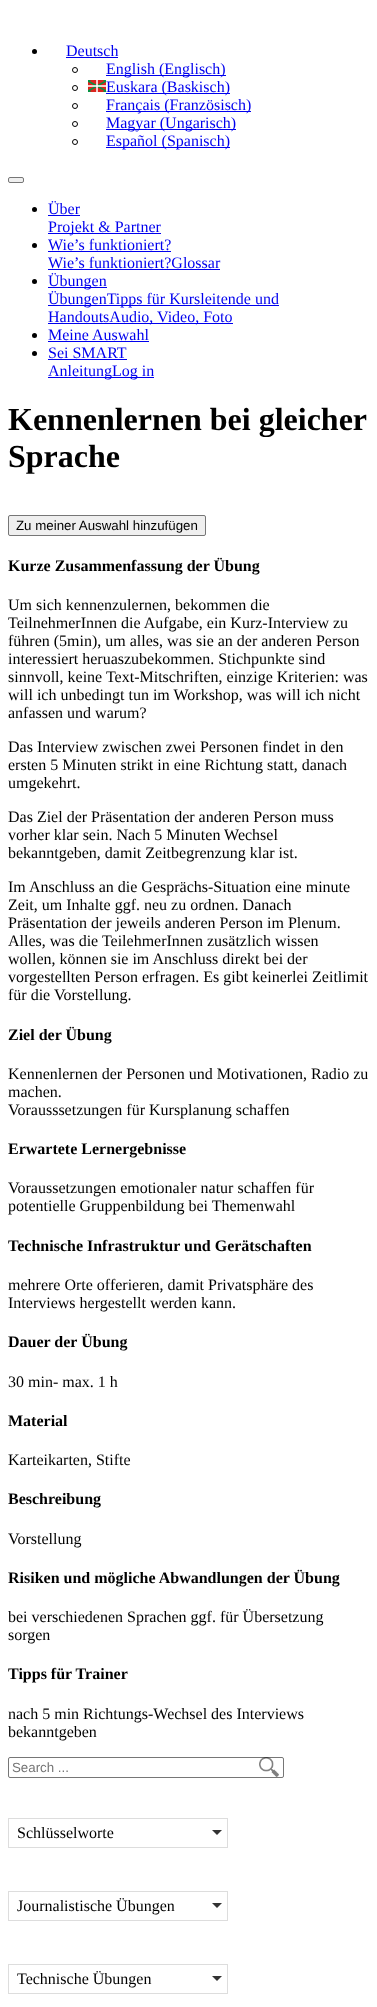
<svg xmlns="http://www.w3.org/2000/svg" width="377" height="2007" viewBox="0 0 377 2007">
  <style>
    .t1 { font: 16px Liberation Serif; fill: #00e; }
    .t2 { font: bold 32px Liberation Serif; fill: #000; }
    .t3 { font: 13.3px Liberation Sans; fill: #000; }
    .t4 { font: bold 16px Liberation Serif; fill: #000; }
    .t5 { font: 16px Liberation Serif; fill: #000; }
    .t6 { font: 13.3px Liberation Sans; fill: #757575; }
  </style>
  <rect width="100%" height="100%" fill="#fff"/>
  <circle cx="34.5" cy="51.5" r="2.5" fill="#000"/>
  <text x="66" y="56" class="t1">Deutsch</text>
  <rect x="66" y="57" width="52" height="1" fill="#00e"/>
  <circle cx="75" cy="70" r="2.5" fill="none" stroke="#000"/>
  <rect x="106" y="75" width="120" height="1" fill="#00e"/>
  <text x="106" y="74" class="t1">English (Englisch)</text>
  <circle cx="75" cy="88" r="2.5" fill="none" stroke="#000"/>
  <image x="88" y="80" width="18" height="12" href="images/1.png"/>
  <rect x="106" y="93" width="124" height="1" fill="#00e"/>
  <text x="106" y="92" class="t1">Euskara (Baskisch)</text>
  <circle cx="75" cy="106" r="2.5" fill="none" stroke="#000"/>
  <rect x="106" y="111" width="145" height="1" fill="#00e"/>
  <text x="106" y="110" class="t1">Français (Französisch)</text>
  <circle cx="75" cy="124" r="2.5" fill="none" stroke="#000"/>
  <rect x="106" y="129" width="130" height="1" fill="#00e"/>
  <text x="106" y="128" class="t1">Magyar (Ungarisch)</text>
  <circle cx="75" cy="142" r="2.5" fill="none" stroke="#000"/>
  <rect x="106" y="147" width="124" height="1" fill="#00e"/>
  <text x="106" y="146" class="t1">Español (Spanisch)</text>
  <rect x="8.5" y="177.5" width="15" height="5" rx="1.5" fill="#efefef" stroke="#767676"/>
  <circle cx="34.5" cy="209.5" r="2.5" fill="#000"/>
  <text x="48" y="214" class="t1">Über</text>
  <rect x="48" y="215" width="32" height="1" fill="#00e"/>
  <rect x="48" y="233" width="113" height="1" fill="#00e"/>
  <text x="48" y="232" class="t1">Projekt &amp; Partner</text>
  <circle cx="34.5" cy="245.5" r="2.5" fill="#000"/>
  <text x="48" y="250" class="t1">Wie’s funktioniert?</text>
  <rect x="48" y="251" width="123" height="1" fill="#00e"/>
  <text x="48" y="268" class="t1">Wie’s funktioniert?Glossar</text>
  <rect x="48" y="269" width="172" height="1" fill="#00e"/>
  <circle cx="34.5" cy="281.5" r="2.5" fill="#000"/>
  <rect x="48" y="287" width="59" height="1" fill="#00e"/>
  <text x="48" y="286" class="t1">Übungen</text>
  <rect x="48" y="305" width="231" height="1" fill="#00e"/>
  <text x="48" y="304" class="t1">ÜbungenTipps für Kursleitende und</text>
  <rect x="48" y="323" width="185" height="1" fill="#00e"/>
  <text x="48" y="322" class="t1">HandoutsAudio, Video, Foto</text>
  <circle cx="34.5" cy="335.5" r="2.5" fill="#000"/>
  <text x="48" y="340" class="t1">Meine Auswahl</text>
  <rect x="48" y="341" width="101" height="1" fill="#00e"/>
  <circle cx="34.5" cy="353.5" r="2.5" fill="#000"/>
  <text x="48" y="358" class="t1">Sei SMART</text>
  <rect x="48" y="359" width="79" height="1" fill="#00e"/>
  <rect x="48" y="377" width="106" height="1" fill="#00e"/>
  <text x="48" y="376" class="t1">AnleitungLog in</text>
  <text x="8" y="430" class="t2">Kennenlernen bei gleicher</text>
  <text x="8" y="467" class="t2">Sprache</text>
  <rect x="8.5" y="515.5" width="197" height="20" rx="1.5" fill="#efefef" stroke="#767676"/>
  <text x="16" y="530" class="t3">Zu meiner Auswahl hinzufügen</text>
  <text x="8" y="571" class="t4">Kurze Zusammenfassung der Übung</text>
  <text x="8" y="610" class="t5">Um sich kennenzulernen, bekommen die</text>
  <text x="8" y="628" class="t5">TeilnehmerInnen die Aufgabe, ein Kurz-Interview zu</text>
  <text x="8" y="646" class="t5">führen (5min), um alles, was sie an der anderen Person</text>
  <text x="8" y="664" class="t5">interessiert heruaszubekommen. Stichpunkte sind</text>
  <text x="8" y="682" class="t5">sinnvoll, keine Text-Mitschriften, einzige Kriterien: was</text>
  <text x="8" y="700" class="t5">will ich unbedingt tun im Workshop, was will ich nicht</text>
  <text x="8" y="718" class="t5">anfassen und warum?</text>
  <text x="8" y="752" class="t5">Das Interview zwischen zwei Personen findet in den</text>
  <text x="8" y="770" class="t5">ersten 5 Minuten strikt in eine Richtung statt, danach</text>
  <text x="8" y="788" class="t5">umgekehrt.</text>
  <text x="8" y="822" class="t5">Das Ziel der Präsentation der anderen Person muss</text>
  <text x="8" y="840" class="t5">vorher klar sein. Nach 5 Minuten Wechsel</text>
  <text x="8" y="858" class="t5">bekanntgeben, damit Zeitbegrenzung klar ist.</text>
  <text x="8" y="892" class="t5">Im Anschluss an die Gesprächs-Situation eine minute</text>
  <text x="8" y="910" class="t5">Zeit, um Inhalte ggf. neu zu ordnen. Danach</text>
  <text x="8" y="928" class="t5">Präsentation der jeweils anderen Person im Plenum.</text>
  <text x="8" y="946" class="t5">Alles, was die TeilehmerInnen zusätzlich wissen</text>
  <text x="8" y="964" class="t5">wollen, können sie im Anschluss direkt bei der</text>
  <text x="8" y="982" class="t5">vorgestellten Person erfragen. Es gibt keinerlei Zeitlimit</text>
  <text x="8" y="1000" class="t5">für die Vorstellung.</text>
  <text x="8" y="1040" class="t4">Ziel der Übung</text>
  <text x="8" y="1079" class="t5">Kennenlernen der Personen und Motivationen, Radio zu</text>
  <text x="8" y="1097" class="t5">machen.</text>
  <text x="8" y="1115" class="t5">Vorausssetzungen für Kursplanung schaffen</text>
  <text x="8" y="1154" class="t4">Erwartete Lernergebnisse</text>
  <text x="8" y="1193" class="t5">Voraussetzungen emotionaler natur schaffen für</text>
  <text x="8" y="1211" class="t5">potentielle Gruppenbildung bei Themenwahl</text>
  <text x="8" y="1251" class="t4">Technische Infrastruktur und Gerätschaften</text>
  <text x="8" y="1290" class="t5">mehrere Orte offerieren, damit Privatsphäre des</text>
  <text x="8" y="1308" class="t5">Interviews hergestellt werden kann.</text>
  <text x="8" y="1347" class="t4">Dauer der Übung</text>
  <text x="8" y="1387" class="t5">30 min- max. 1 h</text>
  <text x="8" y="1426" class="t4">Material</text>
  <text x="8" y="1465" class="t5">Karteikarten, Stifte</text>
  <text x="8" y="1504" class="t4">Beschreibung</text>
  <text x="8" y="1544" class="t5">Vorstellung</text>
  <text x="8" y="1583" class="t4">Risiken und mögliche Abwandlungen der Übung</text>
  <text x="8" y="1622" class="t5">bei verschiedenen Sprachen ggf. für Übersetzung</text>
  <text x="8" y="1640" class="t5">sorgen</text>
  <text x="8" y="1679" class="t4">Tipps für Trainer</text>
  <text x="8" y="1719" class="t5">nach 5 min Richtungs-Wechsel des Interviews</text>
  <text x="8" y="1737" class="t5">bekanntgeben</text>
  <rect x="8.5" y="1757.5" width="275" height="20" rx="1.5" fill="none" stroke="#767676"/>
  <text x="12" y="1772" class="t6">Search ...</text>
  <image x="259" y="1757" width="20" height="20" href="images/2.png"/>
  <rect x="8.5" y="1818.5" width="219" height="29" fill="none" stroke="#ddd"/>
  <text x="17" y="1838" class="t5">Schlüsselworte</text>
  <path d="M212 1830H222L217 1835Z" fill="#333"/>
  <rect x="8.5" y="1891.5" width="219" height="29" fill="none" stroke="#ddd"/>
  <text x="17" y="1911" class="t5">Journalistische Übungen</text>
  <path d="M212 1903H222L217 1908Z" fill="#333"/>
  <rect x="8.5" y="1964.5" width="219" height="29" fill="none" stroke="#ddd"/>
  <text x="17" y="1984" class="t5">Technische Übungen</text>
  <path d="M212 1976H222L217 1981Z" fill="#333"/>
</svg>
